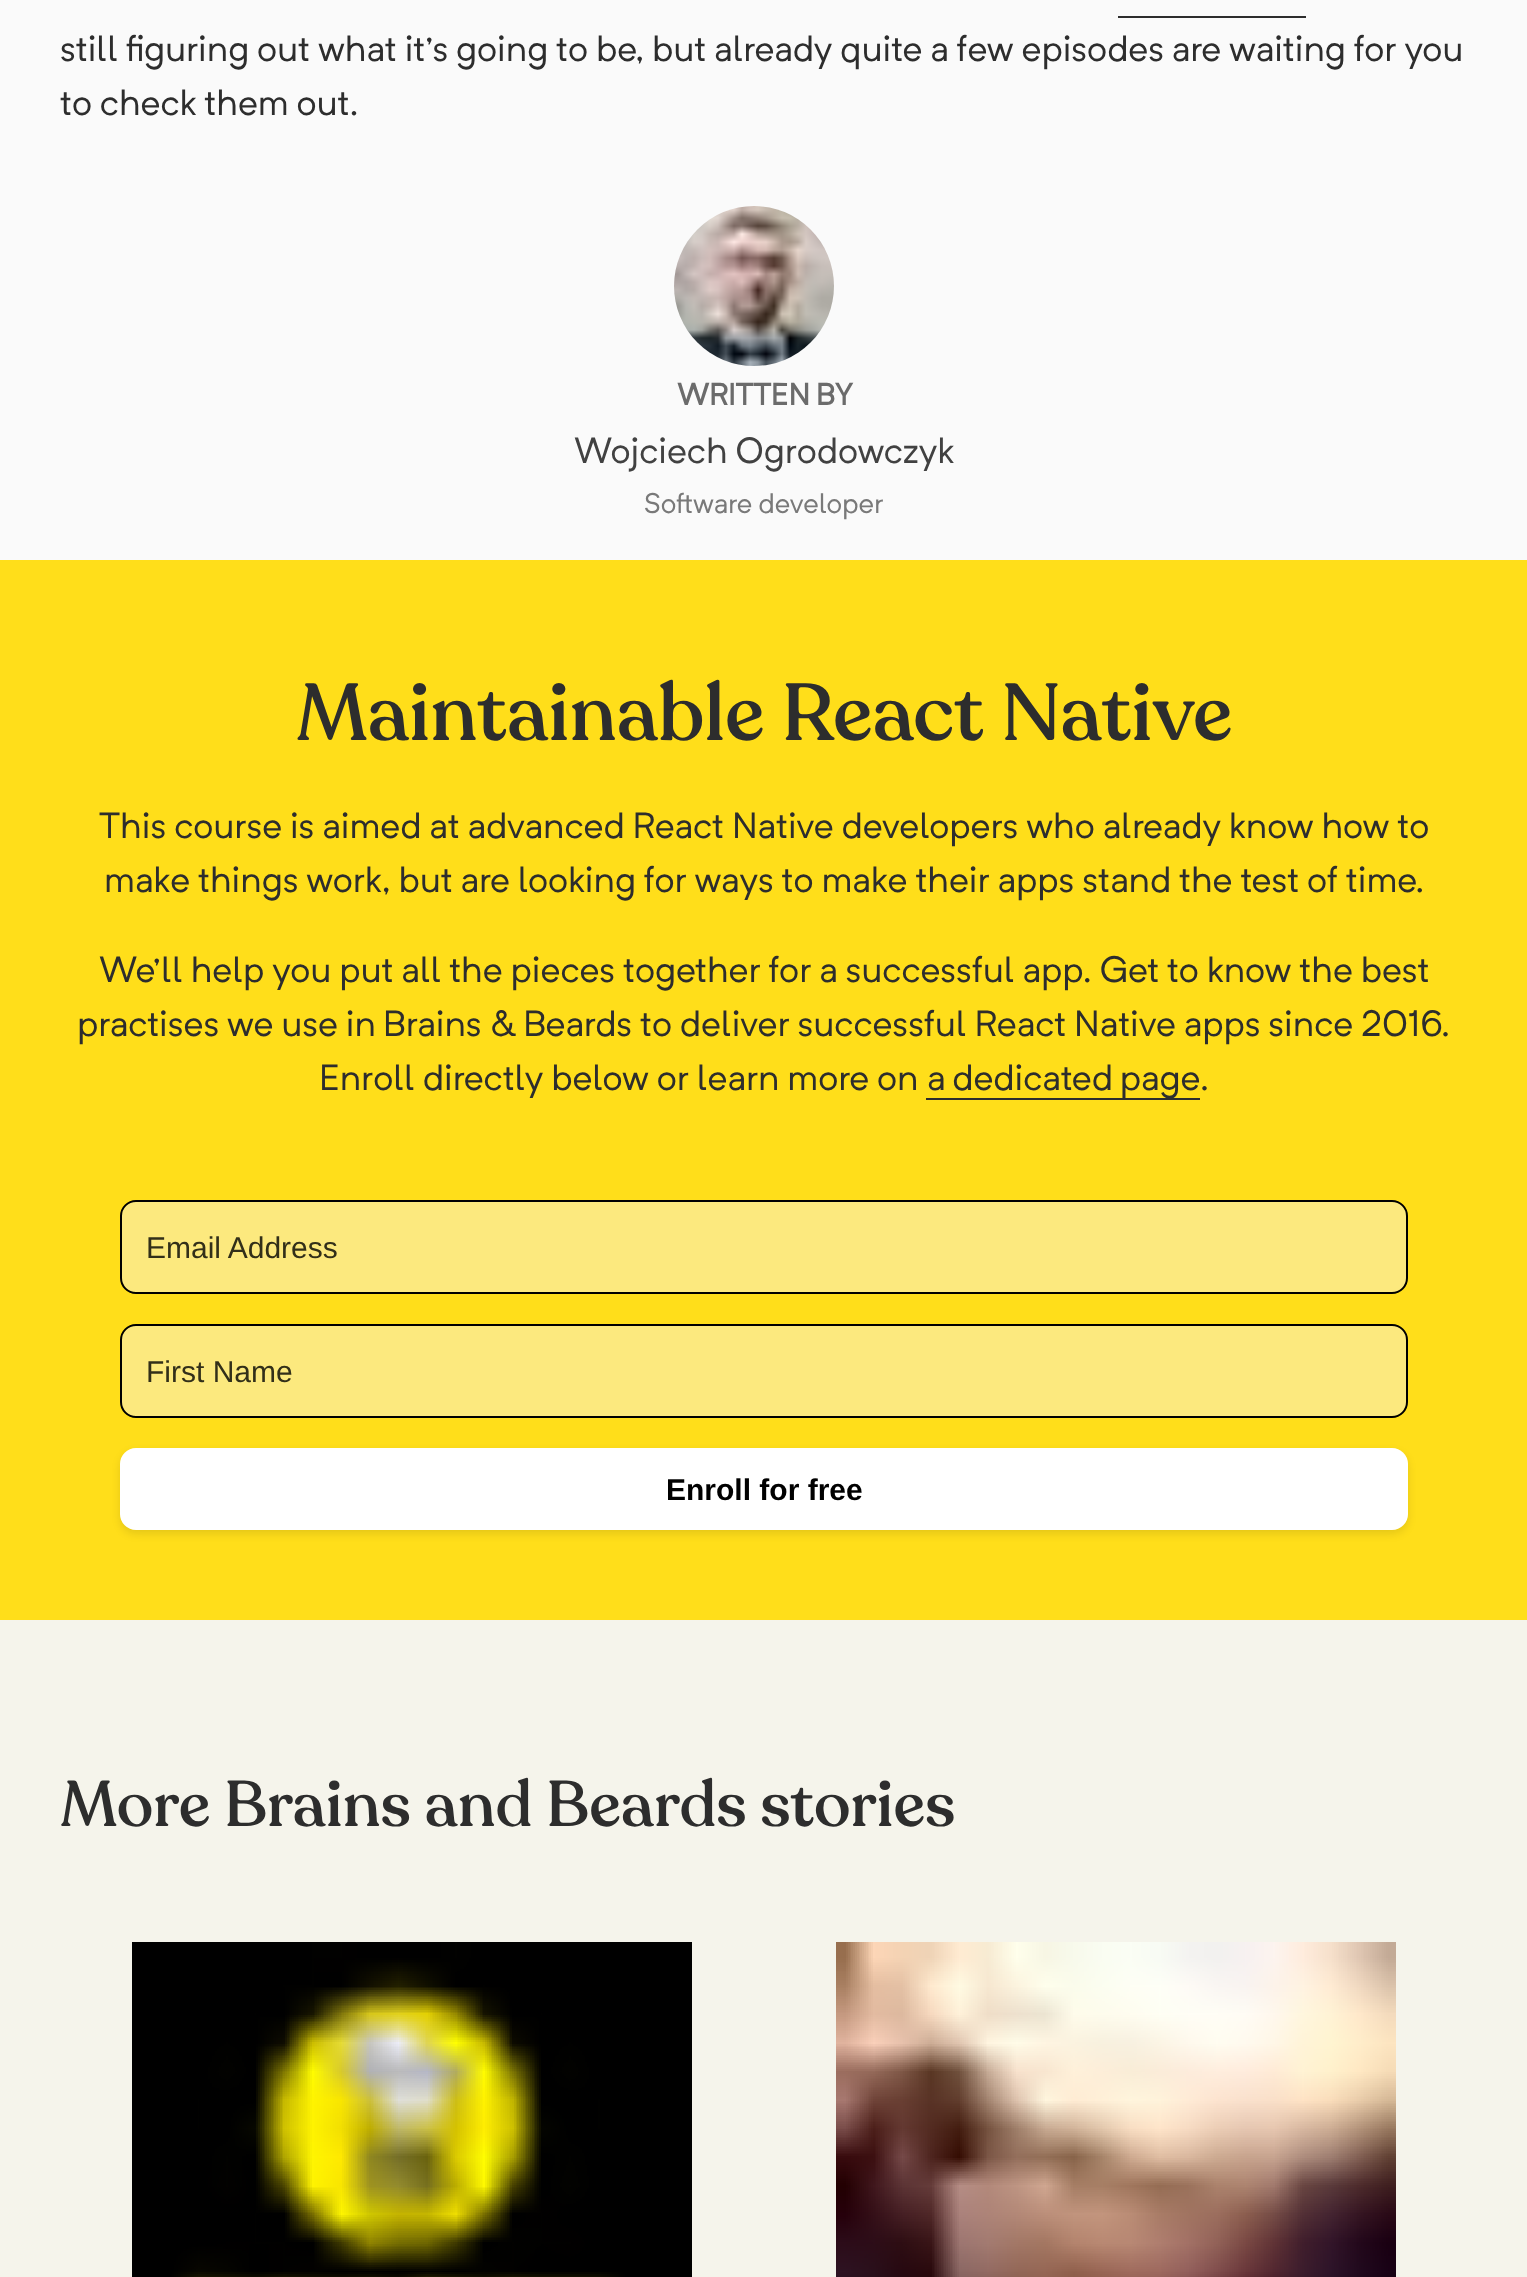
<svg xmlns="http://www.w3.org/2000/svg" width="1527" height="2277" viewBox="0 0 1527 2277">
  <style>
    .t1 { font: 36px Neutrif; fill: #2d2d2d; }
    .t2 { font: bold 30px Neutrif; fill: #6b6b6b; }
    .t3 { font: 36px Neutrif; fill: #414141; }
    .t4 { font: 28px Neutrif; fill: #797979; }
    .t5 { font: 500 80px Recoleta; fill: #2d2d2d; }
    .t6 { font: 30px Liberation Sans; fill: #322f19; }
    .t7 { font: bold 30px Liberation Sans; fill: #000; }
    .t8 { font: 500 64px Recoleta; fill: #2d2d2d; }
  </style>
  <rect width="100%" height="100%" fill="#f5f4eb"/>
  <rect x="0" y="0" width="1527" height="560" fill="#fafafa"/>
  <rect x="1118" y="16" width="188" height="2" fill="#2d2d2d"/>
  <text x="60" y="61" class="t1">still figuring out what it's going to be, but already quite a few episodes are waiting for you</text>
  <text x="60" y="115" class="t1">to check them out.</text>
  <image x="674" y="206" width="160" height="160" href="images/1.png"/>
  <text x="677" y="405" class="t2">WRITTEN BY</text>
  <text x="574" y="463" class="t3">Wojciech Ogrodowczyk</text>
  <text x="644" y="513" class="t4">Software developer</text>
  <rect x="0" y="560" width="1527" height="1060" fill="#ffde1a"/>
  <text x="296" y="740" class="t5">Maintainable React Native</text>
  <text x="99" y="838" class="t1">This course is aimed at advanced React Native developers who already know how to</text>
  <text x="104" y="892" class="t1">make things work, but are looking for ways to make their apps stand the test of time.</text>
  <text x="99" y="982" class="t1">We'll help you put all the pieces together for a successful app. Get to know the best</text>
  <text x="77" y="1036" class="t1">practises we use in Brains &amp; Beards to deliver successful React Native apps since 2016.</text>
  <text x="319" y="1090" class="t1">Enroll directly below or learn more on</text>
  <rect x="926" y="1098" width="274" height="2" fill="#2d2d2d"/>
  <text x="927" y="1090" word-spacing="-1" class="t1">a dedicated page</text>
  <text x="1200" y="1090" class="t1">.</text>
  <rect x="121" y="1201" width="1286" height="92" rx="15" fill="#fce97e" stroke="#000" stroke-width="2"/>
  <text x="146" y="1258" class="t6">Email Address</text>
  <rect x="121" y="1325" width="1286" height="92" rx="15" fill="#fce97e" stroke="#000" stroke-width="2"/>
  <text x="146" y="1382" class="t6">First Name</text>
  <rect x="120" y="1452" width="1288" height="82" rx="16" fill="#0000001a" filter="blur(4px)"/>
  <rect x="120" y="1448" width="1288" height="82" rx="16" fill="#fff"/>
  <text x="666" y="1500" class="t7">Enroll for free</text>
  <text x="60" y="1826" class="t8">More Brains and Beards stories</text>
  <image x="132" y="1942" width="560" height="335" href="images/2.png"/>
  <image x="836" y="1942" width="560" height="335" href="images/3.png"/>
</svg>
